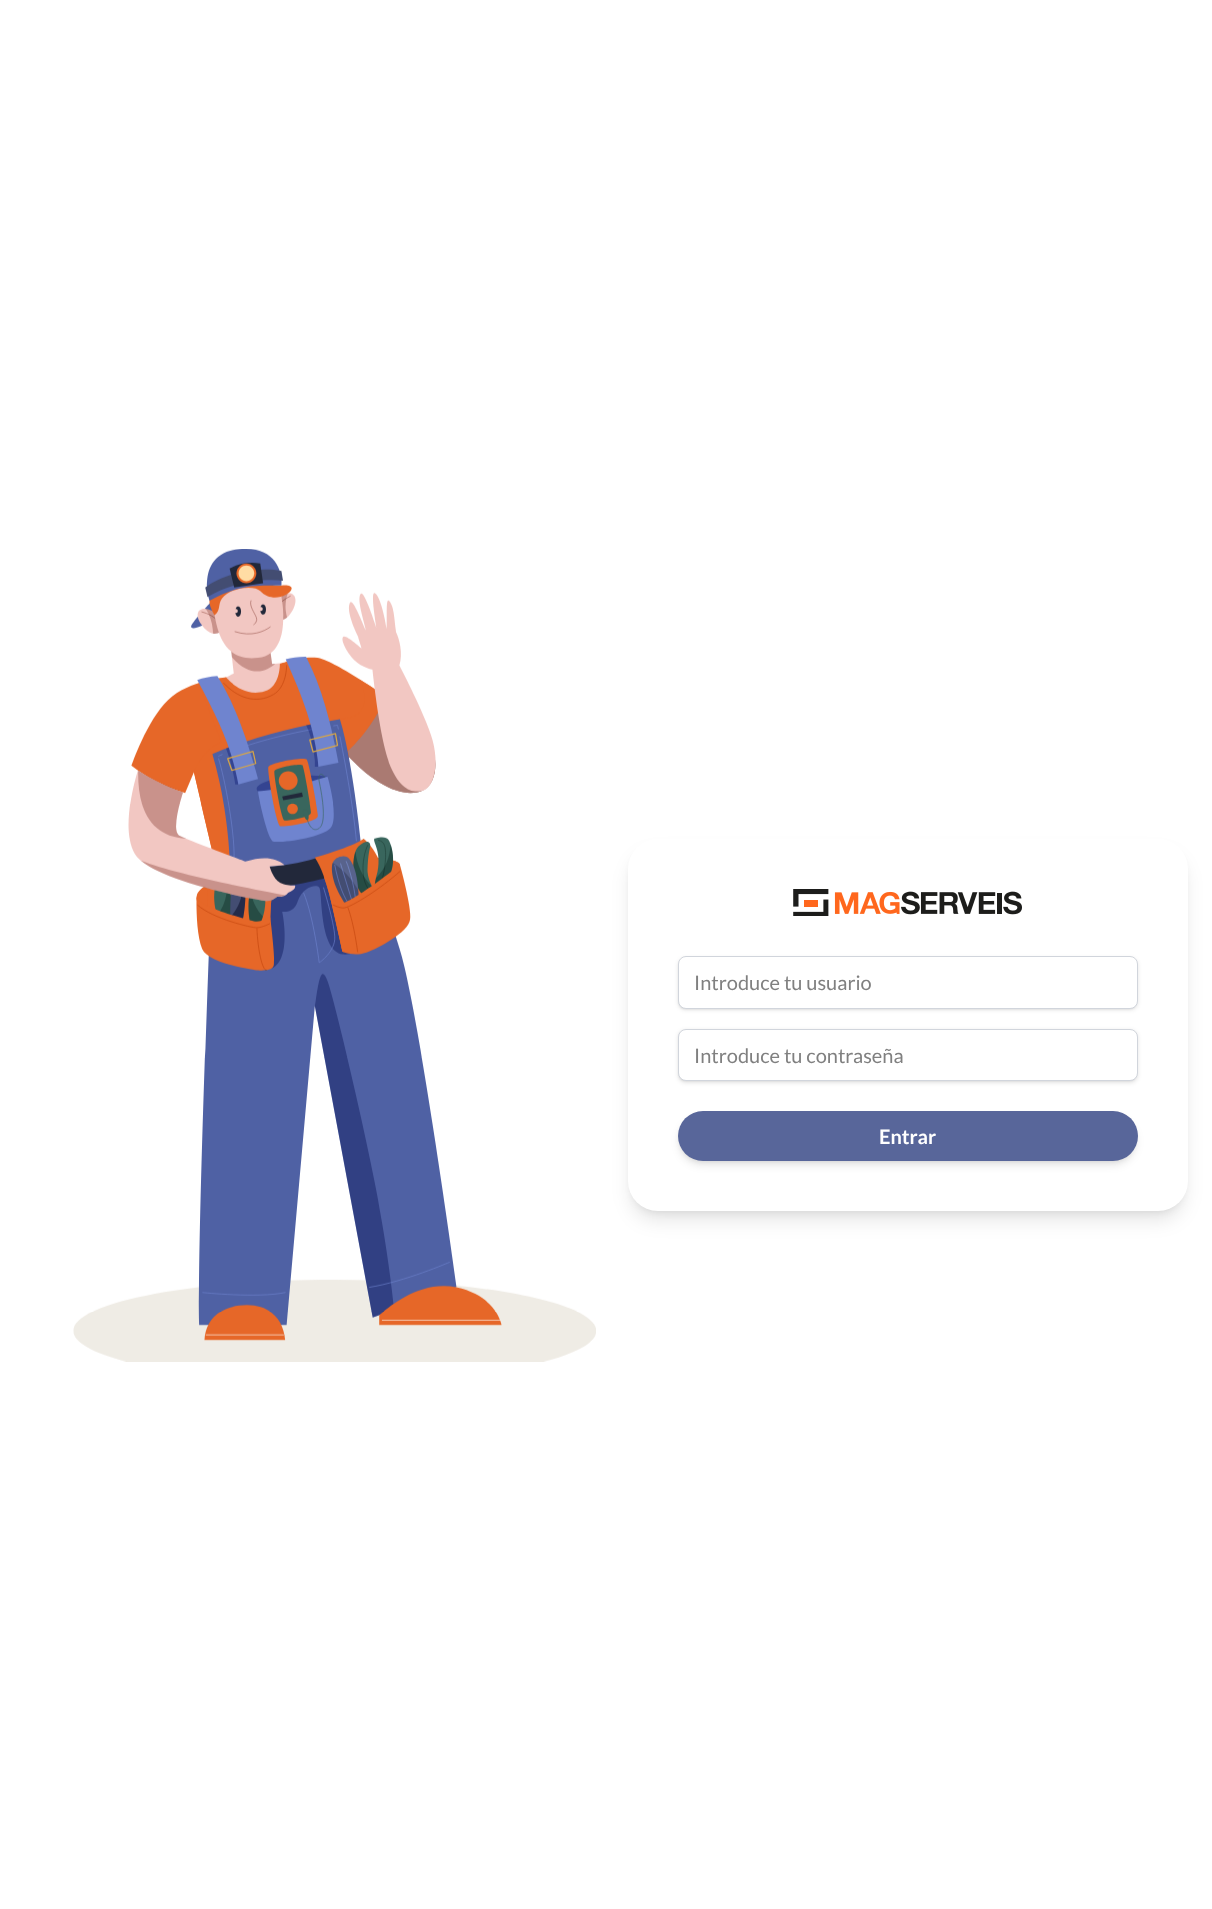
<svg xmlns="http://www.w3.org/2000/svg" width="1212" height="1909" viewBox="0 0 1212 1909">
  <style>
    .t1 { font: 20px Lato; fill: #808080; }
    .t2 { font: bold 20px Lato; fill: #fff; }
  </style>
  <rect width="100%" height="100%" fill="#fff"/>
  <image x="73" y="549" width="523" height="813" href="images/1.png"/>
  <rect x="633" y="849" width="550" height="362" rx="25" fill="#0000001a" filter="blur(4px)"/>
  <rect x="631" y="855" width="553" height="365" rx="26" fill="#0000001a" filter="blur(9.5px)"/>
  <rect x="628" y="839" width="560" height="372" rx="30" fill="#fff"/>
  <image x="793" y="889" width="229" height="27" href="images/2.png"/>
  <rect x="679" y="959" width="457" height="50" rx="6" fill="#0000001a" filter="blur(1px)"/>
  <rect x="678" y="958" width="460" height="52" rx="8" fill="#0000001a" filter="blur(2px)"/>
  <rect x="678.5" y="956.5" width="459" height="52" rx="7.5" fill="#fff" stroke="#d1d5dc"/>
  <text x="694" y="990" class="t1">Introduce tu usuario</text>
  <rect x="679" y="1031" width="457" height="50" rx="6" fill="#0000001a" filter="blur(1px)"/>
  <rect x="678" y="1030" width="460" height="53" rx="8" fill="#0000001a" filter="blur(2px)"/>
  <rect x="678.5" y="1029.5" width="459" height="51" rx="7.5" fill="#fff" stroke="#d1d5dc"/>
  <text x="694" y="1063" class="t1">Introduce tu contraseña</text>
  <rect x="680" y="1116" width="455" height="45" rx="22.5" fill="#0000001a" filter="blur(2.5px)"/>
  <rect x="679" y="1118" width="457" height="47" rx="23.5" fill="#0000001a" filter="blur(4px)"/>
  <rect x="678" y="1111" width="460" height="50" rx="25" fill="#58669a"/>
  <text x="879" y="1144" class="t2">Entrar</text>
</svg>
